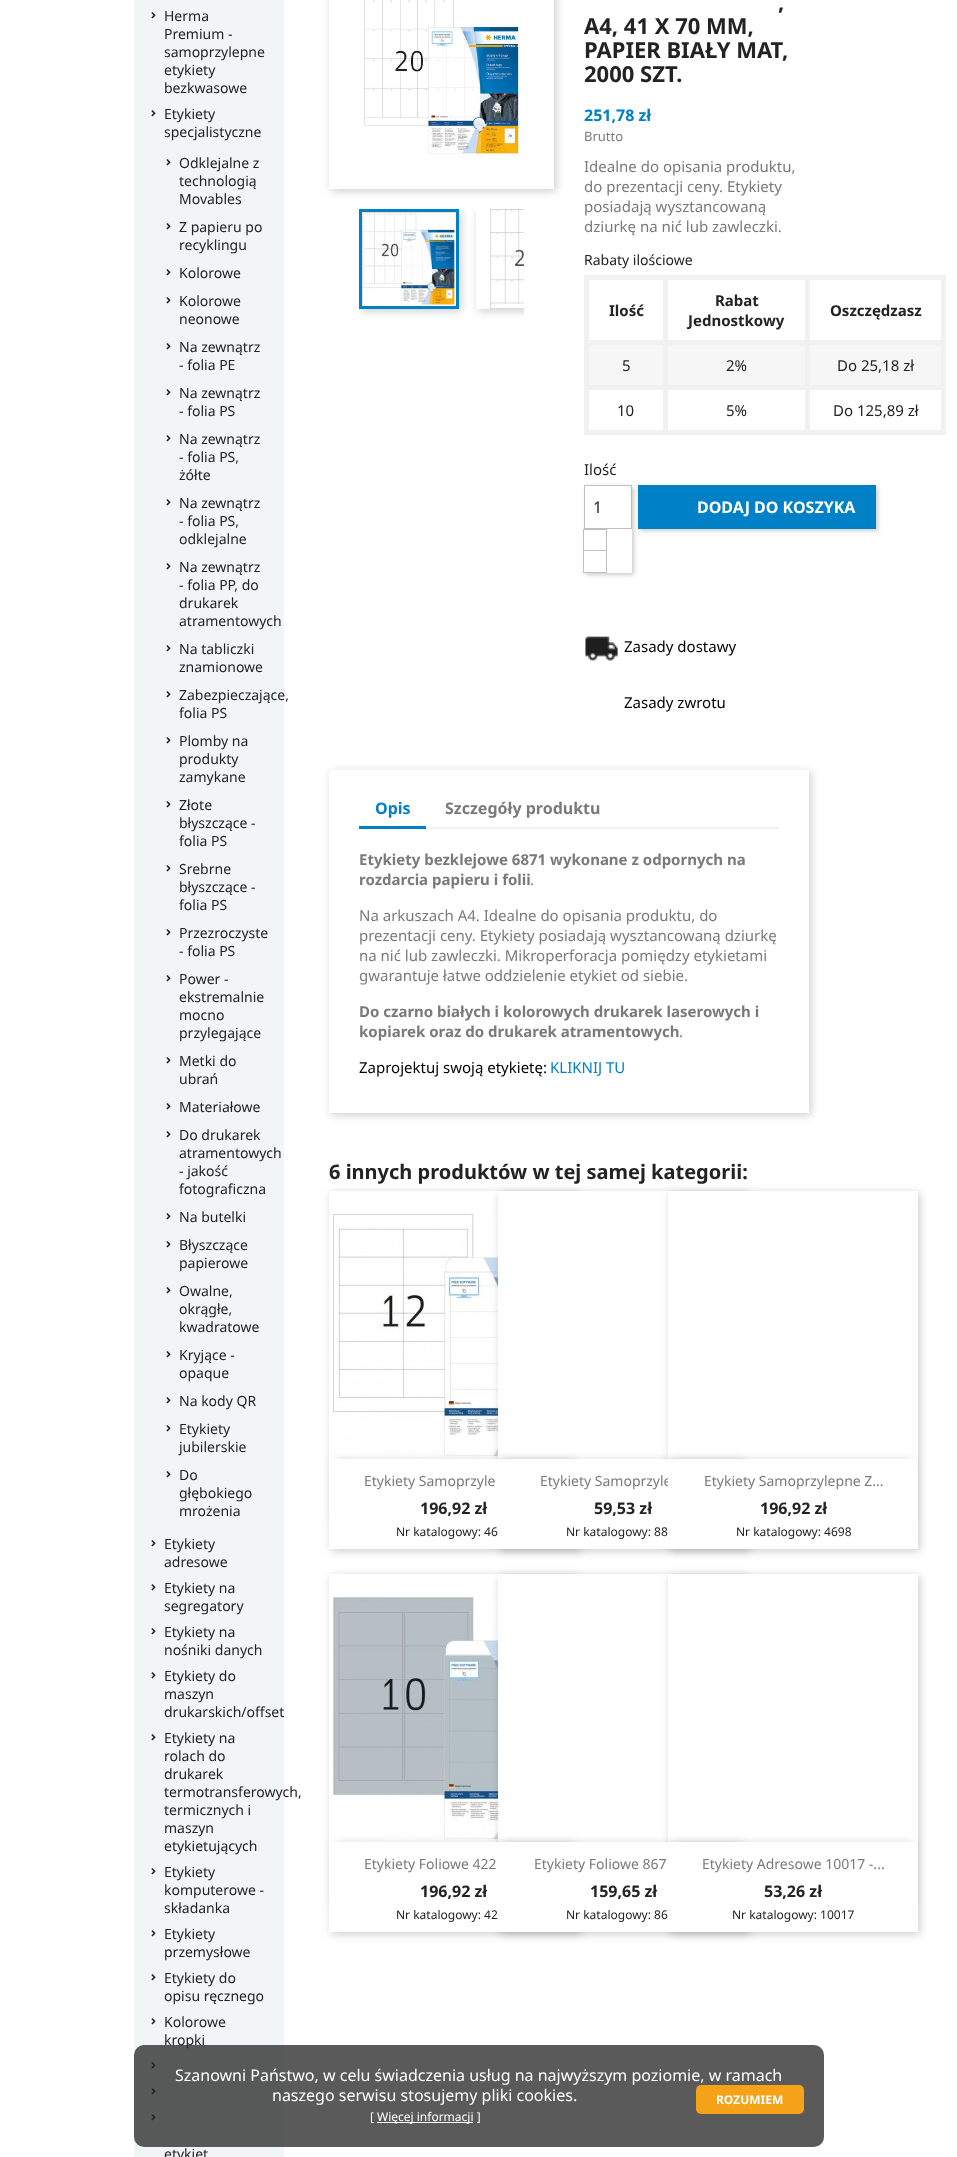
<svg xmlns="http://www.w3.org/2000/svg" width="957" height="2157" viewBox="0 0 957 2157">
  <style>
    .t1 { font: 14px Noto Sans; fill: #232323; }
    .t2 { font: bold 22px Noto Sans; fill: #232323; }
    .t3 { font: bold 16px Noto Sans; fill: #0080c6; }
    .t4 { font: 13px Noto Sans; fill: #7a7a7a; }
    .t5 { font: 15px Noto Sans; fill: #7a7a7a; }
    .t6 { font: bold 15px Noto Sans; fill: #232323; }
    .t7 { font: 15px Noto Sans; fill: #232323; }
    .t8 { font: 16px Noto Sans; fill: #232323; }
    .t9 { font: bold 16px Noto Sans; fill: #fff; }
    .t10 { font: 15px Noto Sans; fill: #000; }
    .t11 { font: bold 16px Noto Sans; fill: #7a7a7a; }
    .t12 { font: bold 15px Noto Sans; fill: #7a7a7a; }
    .t13 { font: 15px Noto Sans; fill: #0080c6; }
    .t14 { font: bold 20px Noto Sans; fill: #232323; }
    .t15 { font: 14px Noto Sans; fill: #7a7a7a; }
    .t16 { font: bold 16px Noto Sans; fill: #232323; }
    .t17 { font: 12px Noto Sans; fill: #232323; }
    .t18 { font: 16px Noto Sans; fill: #fff; }
    .t19 { font: bold 12px Noto Sans; fill: #fff; }
    .t20 { font: 12px Noto Sans; fill: #fff; }
  </style>
  <defs>
    <clipPath id="clip1"><path d="M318 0H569V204H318ZM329-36H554V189H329Z" clip-rule="evenodd"/></clipPath>
    <clipPath id="clip2"><rect x="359" y="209" width="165" height="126"/></clipPath>
    <clipPath id="clip3"><path d="M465 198H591V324H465ZM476 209H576V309H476Z" clip-rule="evenodd"/></clipPath>
    <clipPath id="clip4"><path d="M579 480H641V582H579ZM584 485H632V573H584Z" clip-rule="evenodd"/></clipPath>
    <clipPath id="clip5"><path d="M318 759H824V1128H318ZM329 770H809V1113H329Z" clip-rule="evenodd"/></clipPath>
    <clipPath id="clip6"><path d="M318 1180H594V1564H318ZM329 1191H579V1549H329Z" clip-rule="evenodd"/></clipPath>
    <clipPath id="clip7"><path d="M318 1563H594V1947H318ZM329 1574H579V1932H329Z" clip-rule="evenodd"/></clipPath>
  </defs>
  <rect width="100%" height="100%" fill="#fff"/>
  <rect x="134" y="0" width="150" height="2157" fill="#f2f5f6"/>
  <image x="151" y="12" width="5" height="7" href="images/1.png"/>
  <text x="164" y="21" class="t1">Herma</text>
  <text x="164" y="39" class="t1">Premium -</text>
  <text x="164" y="57" class="t1">samoprzylepne</text>
  <text x="164" y="75" class="t1">etykiety</text>
  <text x="164" y="93" class="t1">bezkwasowe</text>
  <image x="151" y="110" width="5" height="7" href="images/1.png"/>
  <text x="164" y="119" class="t1">Etykiety</text>
  <text x="164" y="137" class="t1">specjalistyczne</text>
  <image x="166" y="159" width="5" height="7" href="images/1.png"/>
  <text x="179" y="168" class="t1">Odklejalne z</text>
  <text x="179" y="186" class="t1">technologią</text>
  <text x="179" y="204" class="t1">Movables</text>
  <image x="166" y="223" width="5" height="7" href="images/1.png"/>
  <text x="179" y="232" class="t1">Z papieru po</text>
  <text x="179" y="250" class="t1">recyklingu</text>
  <image x="166" y="269" width="5" height="7" href="images/1.png"/>
  <text x="179" y="278" class="t1">Kolorowe</text>
  <image x="166" y="297" width="5" height="7" href="images/1.png"/>
  <text x="179" y="306" class="t1">Kolorowe</text>
  <text x="179" y="324" class="t1">neonowe</text>
  <image x="166" y="343" width="5" height="7" href="images/1.png"/>
  <text x="179" y="352" class="t1">Na zewnątrz</text>
  <text x="179" y="370" class="t1">- folia PE</text>
  <image x="166" y="389" width="5" height="7" href="images/1.png"/>
  <text x="179" y="398" class="t1">Na zewnątrz</text>
  <text x="179" y="416" class="t1">- folia PS</text>
  <image x="166" y="435" width="5" height="7" href="images/1.png"/>
  <text x="179" y="444" class="t1">Na zewnątrz</text>
  <text x="179" y="462" class="t1">- folia PS,</text>
  <text x="179" y="480" class="t1">żółte</text>
  <image x="166" y="499" width="5" height="7" href="images/1.png"/>
  <text x="179" y="508" class="t1">Na zewnątrz</text>
  <text x="179" y="526" class="t1">- folia PS,</text>
  <text x="179" y="544" class="t1">odklejalne</text>
  <image x="166" y="563" width="5" height="7" href="images/1.png"/>
  <text x="179" y="572" class="t1">Na zewnątrz</text>
  <text x="179" y="590" class="t1">- folia PP, do</text>
  <text x="179" y="608" class="t1">drukarek</text>
  <text x="179" y="626" class="t1">atramentowych</text>
  <image x="166" y="645" width="5" height="7" href="images/1.png"/>
  <text x="179" y="654" class="t1">Na tabliczki</text>
  <text x="179" y="672" class="t1">znamionowe</text>
  <image x="166" y="691" width="5" height="7" href="images/1.png"/>
  <text x="179" y="700" class="t1">Zabezpieczające,</text>
  <text x="179" y="718" class="t1">folia PS</text>
  <image x="166" y="737" width="5" height="7" href="images/1.png"/>
  <text x="179" y="746" class="t1">Plomby na</text>
  <text x="179" y="764" class="t1">produkty</text>
  <text x="179" y="782" class="t1">zamykane</text>
  <image x="166" y="801" width="5" height="7" href="images/1.png"/>
  <text x="179" y="810" class="t1">Złote</text>
  <text x="179" y="828" class="t1">błyszczące -</text>
  <text x="179" y="846" class="t1">folia PS</text>
  <image x="166" y="865" width="5" height="7" href="images/1.png"/>
  <text x="179" y="874" class="t1">Srebrne</text>
  <text x="179" y="892" class="t1">błyszczące -</text>
  <text x="179" y="910" class="t1">folia PS</text>
  <image x="166" y="929" width="5" height="7" href="images/1.png"/>
  <text x="179" y="938" class="t1">Przezroczyste</text>
  <text x="179" y="956" class="t1">- folia PS</text>
  <image x="166" y="975" width="5" height="7" href="images/1.png"/>
  <text x="179" y="984" class="t1">Power -</text>
  <text x="179" y="1002" class="t1">ekstremalnie</text>
  <text x="179" y="1020" class="t1">mocno</text>
  <text x="179" y="1038" class="t1">przylegające</text>
  <image x="166" y="1057" width="5" height="7" href="images/1.png"/>
  <text x="179" y="1066" class="t1">Metki do</text>
  <text x="179" y="1084" class="t1">ubrań</text>
  <image x="166" y="1103" width="5" height="7" href="images/1.png"/>
  <text x="179" y="1112" class="t1">Materiałowe</text>
  <image x="166" y="1131" width="5" height="7" href="images/1.png"/>
  <text x="179" y="1140" class="t1">Do drukarek</text>
  <text x="179" y="1158" class="t1">atramentowych</text>
  <text x="179" y="1176" class="t1">- jakość</text>
  <text x="179" y="1194" class="t1">fotograficzna</text>
  <image x="166" y="1213" width="5" height="7" href="images/1.png"/>
  <text x="179" y="1222" class="t1">Na butelki</text>
  <image x="166" y="1241" width="5" height="7" href="images/1.png"/>
  <text x="179" y="1250" class="t1">Błyszczące</text>
  <text x="179" y="1268" class="t1">papierowe</text>
  <image x="166" y="1287" width="5" height="7" href="images/1.png"/>
  <text x="179" y="1296" class="t1">Owalne,</text>
  <text x="179" y="1314" class="t1">okrągłe,</text>
  <text x="179" y="1332" class="t1">kwadratowe</text>
  <image x="166" y="1351" width="5" height="7" href="images/1.png"/>
  <text x="179" y="1360" class="t1">Kryjące -</text>
  <text x="179" y="1378" class="t1">opaque</text>
  <image x="166" y="1397" width="5" height="7" href="images/1.png"/>
  <text x="179" y="1406" class="t1">Na kody QR</text>
  <image x="166" y="1425" width="5" height="7" href="images/1.png"/>
  <text x="179" y="1434" class="t1">Etykiety</text>
  <text x="179" y="1452" class="t1">jubilerskie</text>
  <image x="166" y="1471" width="5" height="7" href="images/1.png"/>
  <text x="179" y="1480" class="t1">Do</text>
  <text x="179" y="1498" class="t1">głębokiego</text>
  <text x="179" y="1516" class="t1">mrożenia</text>
  <image x="151" y="1540" width="5" height="7" href="images/1.png"/>
  <text x="164" y="1549" class="t1">Etykiety</text>
  <text x="164" y="1567" class="t1">adresowe</text>
  <image x="151" y="1584" width="5" height="7" href="images/1.png"/>
  <text x="164" y="1593" class="t1">Etykiety na</text>
  <text x="164" y="1611" class="t1">segregatory</text>
  <image x="151" y="1628" width="5" height="7" href="images/1.png"/>
  <text x="164" y="1637" class="t1">Etykiety na</text>
  <text x="164" y="1655" class="t1">nośniki danych</text>
  <image x="151" y="1672" width="5" height="7" href="images/1.png"/>
  <text x="164" y="1681" class="t1">Etykiety do</text>
  <text x="164" y="1699" class="t1">maszyn</text>
  <text x="164" y="1717" class="t1">drukarskich/offset</text>
  <image x="151" y="1734" width="5" height="7" href="images/1.png"/>
  <text x="164" y="1743" class="t1">Etykiety na</text>
  <text x="164" y="1761" class="t1">rolach do</text>
  <text x="164" y="1779" class="t1">drukarek</text>
  <text x="164" y="1797" class="t1">termotransferowych,</text>
  <text x="164" y="1815" class="t1">termicznych i</text>
  <text x="164" y="1833" class="t1">maszyn</text>
  <text x="164" y="1851" class="t1">etykietujących</text>
  <image x="151" y="1868" width="5" height="7" href="images/1.png"/>
  <text x="164" y="1877" class="t1">Etykiety</text>
  <text x="164" y="1895" class="t1">komputerowe -</text>
  <text x="164" y="1913" class="t1">składanka</text>
  <image x="151" y="1930" width="5" height="7" href="images/1.png"/>
  <text x="164" y="1939" class="t1">Etykiety</text>
  <text x="164" y="1957" class="t1">przemysłowe</text>
  <image x="151" y="1974" width="5" height="7" href="images/1.png"/>
  <text x="164" y="1983" class="t1">Etykiety do</text>
  <text x="164" y="2001" class="t1">opisu ręcznego</text>
  <image x="151" y="2018" width="5" height="7" href="images/1.png"/>
  <text x="164" y="2027" class="t1">Kolorowe</text>
  <text x="164" y="2045" class="t1">kropki</text>
  <image x="151" y="2062" width="5" height="7" href="images/1.png"/>
  <image x="151" y="2088" width="5" height="7" href="images/1.png"/>
  <image x="151" y="2114" width="5" height="7" href="images/1.png"/>
  <text x="164" y="2159" class="t1">etykiet</text>
  <g clip-path="url(#clip1)">
    <rect x="331" y="-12" width="225" height="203" fill="#00000033" filter="blur(4px)"/>
  </g>
  <image x="364" y="0" width="158" height="157" href="images/2.png"/>
  <g clip-path="url(#clip2)">
    <rect x="361" y="211" width="100" height="100" fill="#00000033" filter="blur(4px)"/>
  </g>
  <g clip-path="url(#clip2)">
    <g clip-path="url(#clip3)">
      <rect x="478" y="211" width="100" height="100" fill="#00000033" filter="blur(4px)"/>
    </g>
  </g>
  <rect x="360.5" y="210.5" width="97" height="97" fill="none" stroke="#0080c6" stroke-width="3"/>
  <image x="490" y="209" width="34" height="100" href="images/3.png"/>
  <image x="363" y="213" width="93" height="93" href="images/4.png"/>
  <text x="778" y="10" class="t2">,</text>
  <text x="584" y="34" class="t2">A4, 41 X 70 MM,</text>
  <text x="584" y="58" class="t2">PAPIER BIAŁY MAT,</text>
  <text x="584" y="82" class="t2">2000 SZT.</text>
  <text x="584" y="121" class="t3">251,78 zł</text>
  <text x="584" y="141" class="t4">Brutto</text>
  <text x="584" y="172" class="t5">Idealne do opisania produktu,</text>
  <text x="584" y="192" class="t5">do prezentacji ceny. Etykiety</text>
  <text x="584" y="212" class="t5">posiadają wysztancowaną</text>
  <text x="584" y="232" class="t5">dziurkę na nić lub zawleczki.</text>
  <text x="584" y="265" class="t1">Rabaty ilościowe</text>
  <rect x="805" y="275" width="141" height="5" fill="#f1f1f1"/>
  <rect x="805" y="340" width="141" height="5" fill="#f1f1f1"/>
  <rect x="589" y="345" width="352" height="40" fill="#f6f6f6"/>
  <rect x="805" y="385" width="141" height="5" fill="#f1f1f1"/>
  <rect x="941" y="385" width="5" height="50" fill="#f1f1f1"/>
  <rect x="805" y="430" width="141" height="5" fill="#f1f1f1"/>
  <rect x="805" y="385" width="5" height="50" fill="#f1f1f1"/>
  <rect x="663" y="385" width="147" height="5" fill="#f1f1f1"/>
  <rect x="805" y="340" width="5" height="50" fill="#f1f1f1"/>
  <rect x="663" y="340" width="147" height="5" fill="#f1f1f1"/>
  <rect x="805" y="275" width="5" height="70" fill="#f1f1f1"/>
  <rect x="663" y="275" width="147" height="5" fill="#f1f1f1"/>
  <rect x="663" y="430" width="147" height="5" fill="#f1f1f1"/>
  <rect x="663" y="385" width="5" height="50" fill="#f1f1f1"/>
  <rect x="584" y="385" width="84" height="5" fill="#f1f1f1"/>
  <rect x="663" y="340" width="5" height="50" fill="#f1f1f1"/>
  <rect x="584" y="340" width="84" height="5" fill="#f1f1f1"/>
  <rect x="663" y="275" width="5" height="70" fill="#f1f1f1"/>
  <rect x="584" y="275" width="84" height="5" fill="#f1f1f1"/>
  <rect x="584" y="430" width="84" height="5" fill="#f1f1f1"/>
  <rect x="584" y="385" width="5" height="50" fill="#f1f1f1"/>
  <rect x="584" y="340" width="5" height="50" fill="#f1f1f1"/>
  <rect x="584" y="275" width="5" height="70" fill="#f1f1f1"/>
  <text x="609" y="316" class="t6">Ilość</text>
  <text x="715" y="306" class="t6">Rabat</text>
  <text x="688" y="326" class="t6">Jednostkowy</text>
  <rect x="941" y="340" width="5" height="50" fill="#f1f1f1"/>
  <rect x="941" y="275" width="5" height="70" fill="#f1f1f1"/>
  <text x="830" y="316" class="t6">Oszczędzasz</text>
  <text x="622" y="371" class="t7">5</text>
  <text x="726" y="371" class="t7">2%</text>
  <text x="837" y="371" class="t7">Do 25,18 zł</text>
  <text x="617" y="416" class="t7">10</text>
  <text x="726" y="416" class="t7">5%</text>
  <text x="833" y="416" class="t7">Do 125,89 zł</text>
  <text x="584" y="475" class="t7">Ilość</text>
  <rect x="640" y="487" width="238" height="44" fill="#00000033" filter="blur(2px)"/>
  <rect x="638" y="485" width="238" height="44" fill="#0080c6"/>
  <g clip-path="url(#clip4)">
    <rect x="586" y="487" width="48" height="88" fill="#00000033" filter="blur(2px)"/>
  </g>
  <rect x="584.5" y="485.5" width="47" height="43" fill="none" stroke="#bfbfbf"/>
  <text x="593" y="513" class="t8">1</text>
  <rect x="583.5" y="529.5" width="23" height="22" fill="none" stroke="#bfbfbf"/>
  <rect x="584" y="551" width="22" height="1" fill="#fff"/>
  <rect x="583.5" y="550.5" width="23" height="22" fill="none" stroke="#bfbfbf"/>
  <text x="697" y="513" class="t9">DODAJ DO KOSZYKA</text>
  <image x="585" y="636" width="33" height="25" href="images/5.png"/>
  <text x="624" y="652" class="t10">Zasady dostawy</text>
  <text x="624" y="708" class="t10">Zasady zwrotu</text>
  <g clip-path="url(#clip5)">
    <rect x="331" y="772" width="480" height="343" fill="#00000033" filter="blur(4px)"/>
  </g>
  <rect x="426" y="827" width="353" height="2" fill="#f1f1f1"/>
  <rect x="359" y="826" width="67" height="3" fill="#0080c6"/>
  <text x="375" y="814" class="t3">Opis</text>
  <text x="445" y="814" class="t11">Szczegóły produktu</text>
  <text x="359" y="865" class="t12">Etykiety bezklejowe 6871 wykonane z odpornych na</text>
  <text x="359" y="885" class="t12">rozdarcia papieru i folii</text>
  <text x="530" y="885" class="t5">.</text>
  <text x="359" y="921" class="t5">Na arkuszach A4. Idealne do opisania produktu, do</text>
  <text x="359" y="941" class="t5">prezentacji ceny. Etykiety posiadają wysztancowaną dziurkę</text>
  <text x="359" y="961" class="t5">na nić lub zawleczki. Mikroperforacja pomiędzy etykietami</text>
  <text x="359" y="981" class="t5">gwarantuje łatwe oddzielenie etykiet od siebie.</text>
  <text x="359" y="1017" class="t12">Do czarno białych i kolorowych drukarek laserowych i</text>
  <text x="359" y="1037" class="t12">kopiarek oraz do drukarek atramentowych</text>
  <text x="679" y="1037" class="t5">.</text>
  <text x="359" y="1073" class="t10">Zaprojektuj swoją etykietę:</text>
  <text x="550" y="1073" class="t13">KLIKNIJ TU</text>
  <text x="329" y="1179" class="t14">6 innych produktów w tej samej kategorii:</text>
  <g clip-path="url(#clip6)">
    <rect x="331" y="1193" width="250" height="358" fill="#00000033" filter="blur(4px)"/>
  </g>
  <image x="330" y="1210" width="168" height="249" href="images/6.png"/>
  <rect x="500" y="1193" width="250" height="358" fill="#00000033" filter="blur(4px)"/>
  <rect x="498" y="1191" width="170" height="268" fill="#fff"/>
  <rect x="334" y="1461" width="240" height="58" fill="#00000033" filter="blur(5px)"/>
  <rect x="670" y="1193" width="250" height="358" fill="#00000033" filter="blur(4px)"/>
  <rect x="668" y="1191" width="250" height="268" fill="#fff"/>
  <rect x="503" y="1461" width="240" height="58" fill="#00000033" filter="blur(5px)"/>
  <rect x="673" y="1461" width="240" height="58" fill="#00000033" filter="blur(5px)"/>
  <rect x="329" y="1459" width="339" height="90" fill="#fff"/>
  <text x="364" y="1486" class="t15">Etykiety Samoprzyle</text>
  <text x="420" y="1514" class="t16">196,92 zł</text>
  <text x="396" y="1536" class="t17">Nr katalogowy: 46</text>
  <text x="540" y="1486" class="t15">Etykiety Samoprzyle</text>
  <text x="594" y="1514" class="t16">59,53 zł</text>
  <text x="566" y="1536" class="t17">Nr katalogowy: 88</text>
  <rect x="668" y="1459" width="250" height="90" fill="#fff"/>
  <text x="704" y="1486" class="t15">Etykiety Samoprzylepne Z...</text>
  <text x="760" y="1514" class="t16">196,92 zł</text>
  <text x="736" y="1536" class="t17">Nr katalogowy: 4698</text>
  <g clip-path="url(#clip7)">
    <rect x="331" y="1576" width="250" height="358" fill="#00000033" filter="blur(4px)"/>
  </g>
  <image x="329" y="1594" width="169" height="248" href="images/7.png"/>
  <rect x="500" y="1576" width="250" height="358" fill="#00000033" filter="blur(4px)"/>
  <rect x="498" y="1574" width="170" height="268" fill="#fff"/>
  <rect x="334" y="1844" width="240" height="58" fill="#00000033" filter="blur(5px)"/>
  <rect x="670" y="1576" width="250" height="358" fill="#00000033" filter="blur(4px)"/>
  <rect x="668" y="1574" width="250" height="268" fill="#fff"/>
  <rect x="503" y="1844" width="240" height="58" fill="#00000033" filter="blur(5px)"/>
  <rect x="673" y="1844" width="240" height="58" fill="#00000033" filter="blur(5px)"/>
  <rect x="329" y="1842" width="589" height="90" fill="#fff"/>
  <text x="364" y="1869" class="t15">Etykiety Foliowe 422</text>
  <text x="420" y="1897" class="t16">196,92 zł</text>
  <text x="396" y="1919" class="t17">Nr katalogowy: 42</text>
  <text x="534" y="1869" class="t15">Etykiety Foliowe 867</text>
  <text x="590" y="1897" class="t16">159,65 zł</text>
  <text x="566" y="1919" class="t17">Nr katalogowy: 86</text>
  <text x="702" y="1869" class="t15">Etykiety Adresowe 10017 -...</text>
  <text x="764" y="1897" class="t16">53,26 zł</text>
  <text x="732" y="1919" class="t17">Nr katalogowy: 10017</text>
  <rect x="134" y="2045" width="690" height="102" rx="10" fill="#232323bf"/>
  <text x="175" y="2081" class="t18">Szanowni Państwo, w celu świadczenia usług na najwyższym poziomie, w ramach</text>
  <text x="272" y="2101" class="t18">naszego serwisu stosujemy pliki cookies.</text>
  <rect x="696" y="2085" width="108" height="29" rx="5" fill="#f5a219"/>
  <text x="716" y="2104" class="t19">ROZUMIEM</text>
  <text x="370" y="2121" class="t20">[</text>
  <rect x="377" y="2122" width="96" height="1" fill="#fff"/>
  <text x="377" y="2121" class="t20">Więcej informacji ]</text>
</svg>
